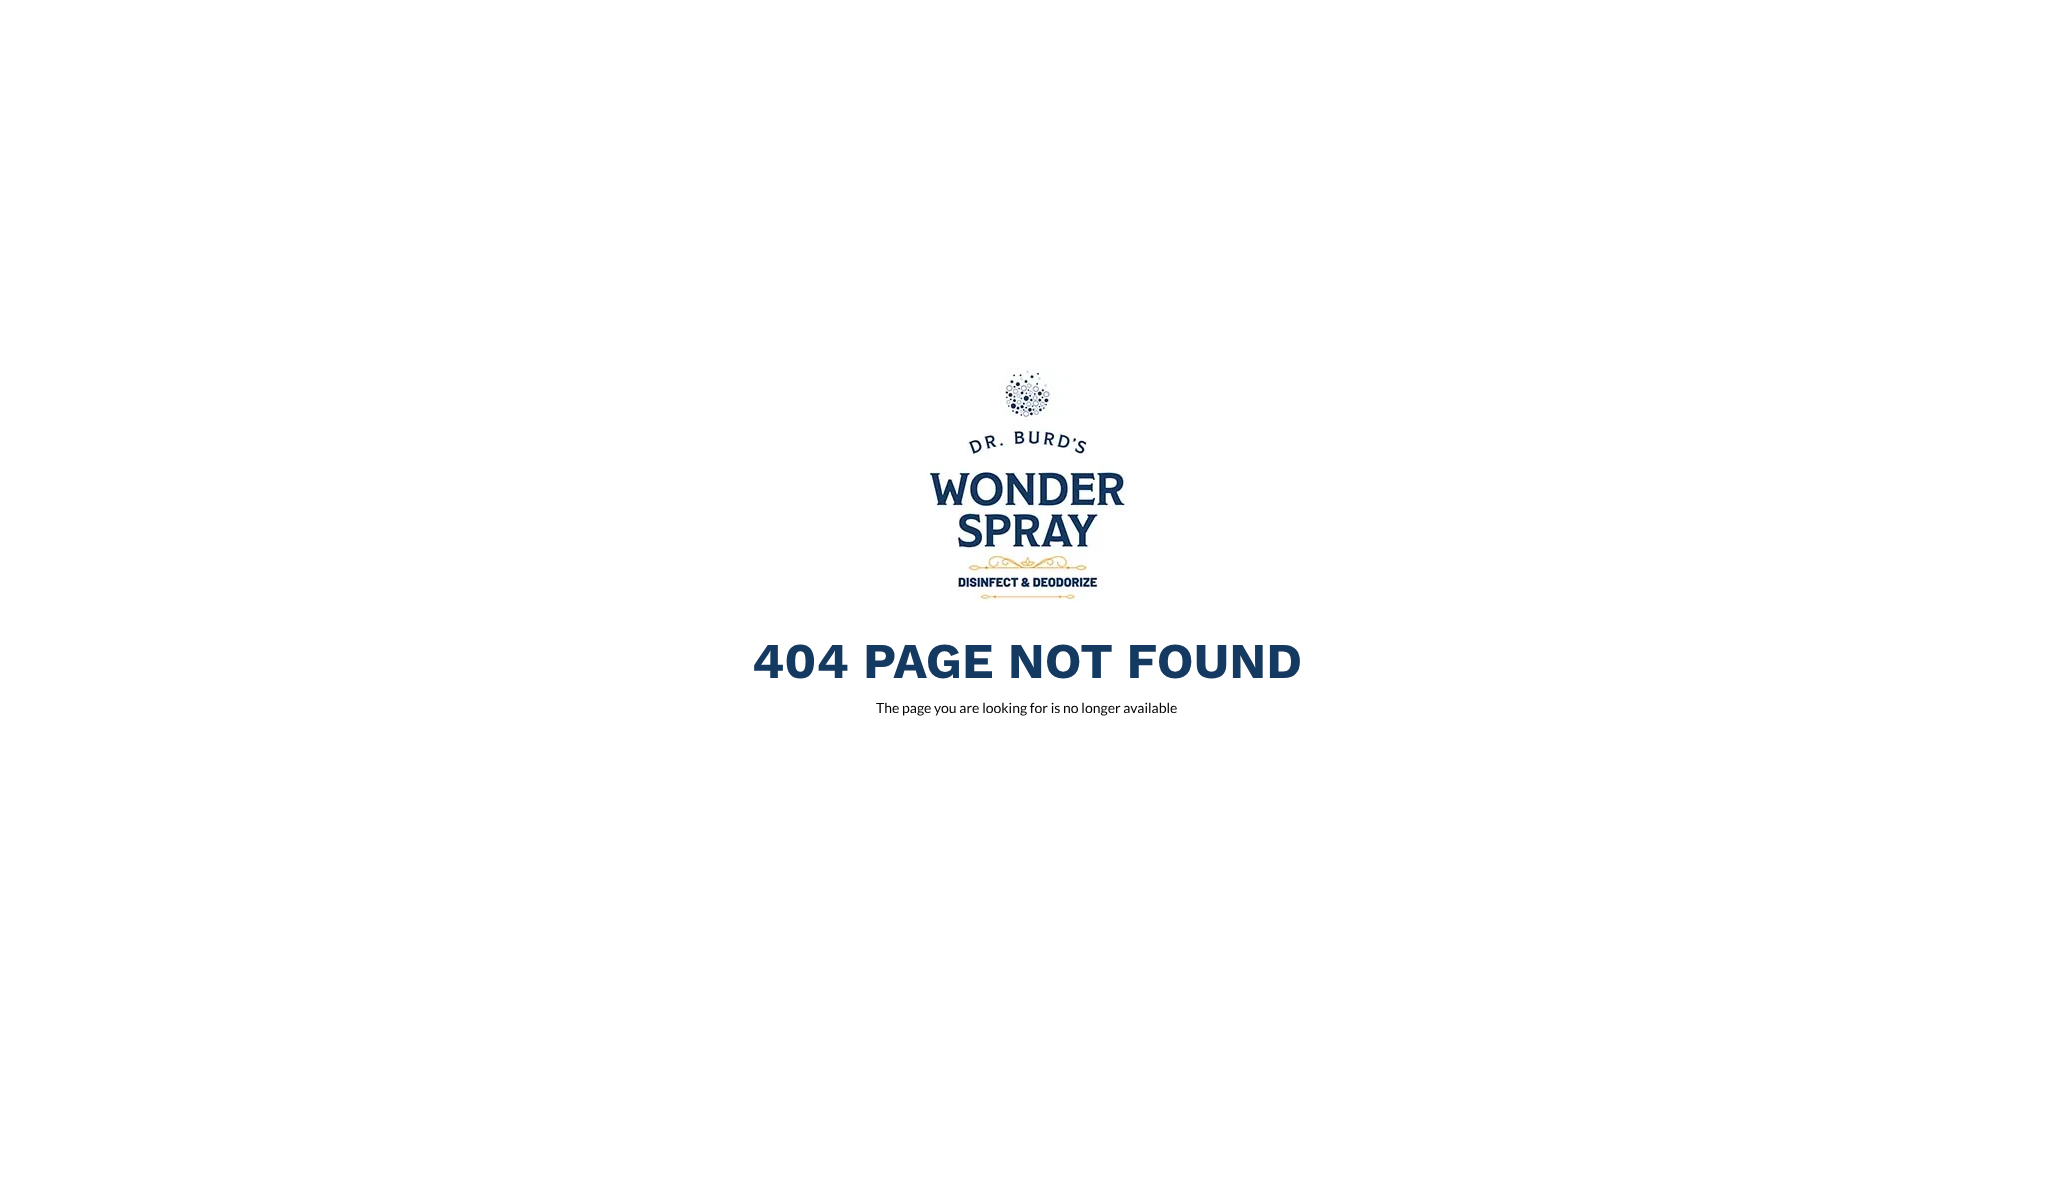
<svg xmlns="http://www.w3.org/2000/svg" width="2054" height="1181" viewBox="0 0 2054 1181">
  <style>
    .t1 { font: bold 50px Work Sans; fill: #153a62; }
    .t2 { font: 14px Lato; fill: #000; }
  </style>
  <rect width="100%" height="100%" fill="#fff"/>
  <image x="927" y="368" width="200" height="233" href="images/1.png"/>
  <text x="752" y="678" class="t1">404 PAGE NOT FOUND</text>
  <text x="876" y="713" class="t2">The page you are looking for is no longer available</text>
</svg>
